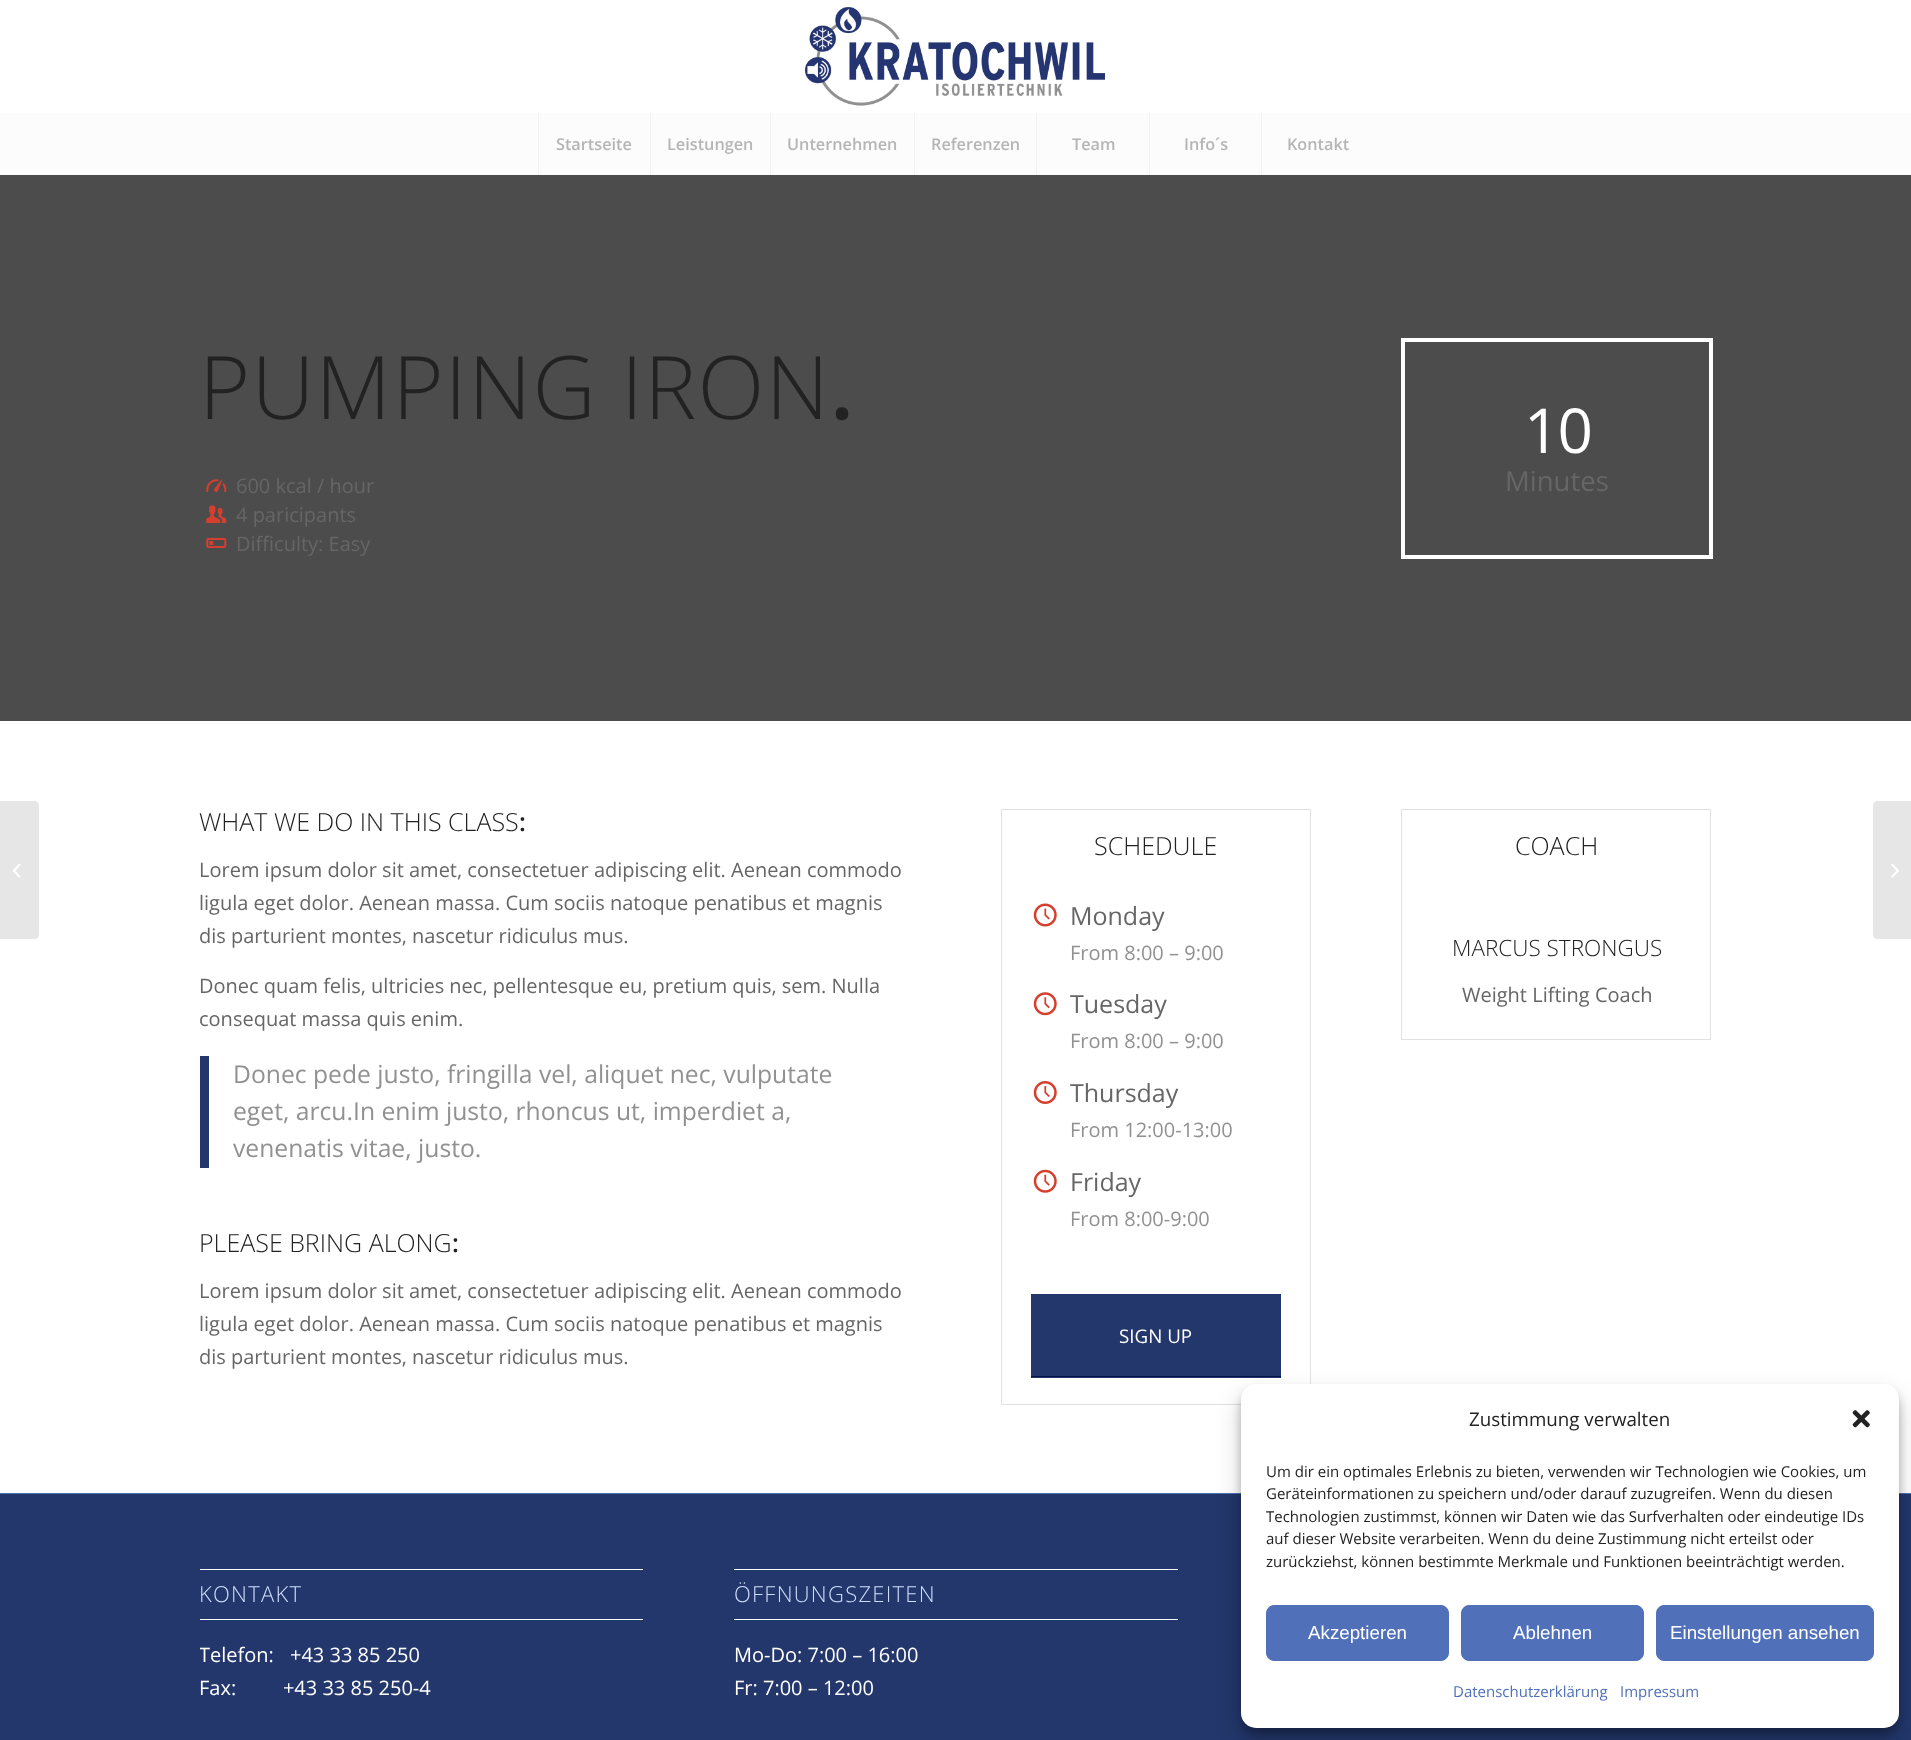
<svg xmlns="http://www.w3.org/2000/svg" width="1911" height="1740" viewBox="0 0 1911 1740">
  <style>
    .t1 { font: 600 16.25px Open Sans; fill: #b5b5b5; }
    .t2 { font: 300 87.5px Open Sans; letter-spacing: 1.25px; fill: #222; }
    .t3 { font: 600 87.5px Open Sans; letter-spacing: 1.25px; fill: #222; }
    .t4 { font: 20px Open Sans; fill: #666; }
    .t5 { font: 62px Open Sans; letter-spacing: -2px; fill: #fff; }
    .t6 { font: 27.5px Open Sans; fill: #666; }
    .t7 { font: 300 25px Open Sans; fill: #222; }
    .t8 { font: 600 25px Open Sans; fill: #222; }
    .t9 { font: 24.7px Open Sans; fill: #919191; }
    .t10 { font: 25px Open Sans; fill: #666; }
    .t11 { font: 20px Open Sans; fill: #919191; }
    .t12 { font: 18.75px Open Sans; fill: #fff; }
    .t13 { font: 300 22.5px Open Sans; fill: #222; }
    .t14 { font: 300 22px Open Sans; letter-spacing: 1.25px; fill: #cfddfc; }
    .t15 { font: 20px Open Sans; fill: #fff; }
    .t16 { font: 18.75px Open Sans; fill: #222; }
    .t17 { font: 15px Open Sans; fill: #222; }
    .t18 { font: 18.75px Liberation Sans; fill: #fff; }
    .t19 { font: 15px Open Sans; fill: #5070ba; }
  </style>
  <defs>
    <clipPath id="clip1"><rect x="200" y="1550" width="443" height="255"/></clipPath>
  </defs>
  <rect width="100%" height="100%" fill="#fff"/>
  <image x="805" y="7" width="300" height="99" href="images/1.png"/>
  <rect x="0" y="113" width="1911" height="62" fill="#fcfcfc"/>
  <rect x="538" y="113" width="1" height="62" fill="#f2f2f2"/>
  <text x="556" y="150" class="t1">Startseite</text>
  <rect x="650" y="113" width="1" height="62" fill="#f2f2f2"/>
  <text x="667" y="150" class="t1">Leistungen</text>
  <rect x="770" y="113" width="1" height="62" fill="#f2f2f2"/>
  <text x="787" y="150" class="t1">Unternehmen</text>
  <rect x="914" y="113" width="1" height="62" fill="#f2f2f2"/>
  <text x="931" y="150" class="t1">Referenzen</text>
  <rect x="1036" y="113" width="1" height="62" fill="#f2f2f2"/>
  <text x="1072" y="150" class="t1">Team</text>
  <rect x="1149" y="113" width="1" height="62" fill="#f2f2f2"/>
  <text x="1184" y="150" class="t1">Info´s</text>
  <rect x="1261" y="113" width="1" height="62" fill="#f2f2f2"/>
  <text x="1287" y="150" class="t1">Kontakt</text>
  <path d="M0 801H34C37 801 39 803 39 806V934C39 937 37 939 34 939H0Z" fill="#e6e6e6"/>
  <image x="12" y="864" width="9" height="14" href="images/2.png"/>
  <rect x="0" y="175" width="1911" height="546" fill="#4c4c4c"/>
  <text x="199" y="419" class="t2">PUMPING IRON</text>
  <text x="830" y="419" class="t3">.</text>
  <image x="206" y="479" width="21" height="14" href="images/3.png"/>
  <text x="236" y="493" class="t4">600 kcal / hour</text>
  <image x="206" y="505" width="21" height="19" href="images/4.png"/>
  <text x="236" y="522" class="t4">4 paricipants</text>
  <image x="206" y="538" width="21" height="10" href="images/5.png"/>
  <text x="236" y="551" class="t4">Difficulty: Easy</text>
  <rect x="1403" y="340" width="308" height="217" fill="none" stroke="#fff" stroke-width="4"/>
  <text x="1524" y="453" class="t5">10</text>
  <text x="1505" y="491" class="t6">Minutes</text>
  <text x="199" y="831" class="t7">WHAT WE DO IN THIS CLASS</text>
  <text x="519" y="831" class="t8">:</text>
  <text x="199" y="877" class="t4">Lorem ipsum dolor sit amet, consectetuer adipiscing elit. Aenean commodo</text>
  <text x="199" y="910" class="t4">ligula eget dolor. Aenean massa. Cum sociis natoque penatibus et magnis</text>
  <text x="199" y="943" class="t4">dis parturient montes, nascetur ridiculus mus.</text>
  <text x="199" y="993" class="t4">Donec quam felis, ultricies nec, pellentesque eu, pretium quis, sem. Nulla</text>
  <text x="199" y="1026" class="t4">consequat massa quis enim.</text>
  <rect x="200" y="1056" width="9" height="112" fill="#23376c"/>
  <text x="233" y="1083" class="t9">Donec pede justo, fringilla vel, aliquet nec, vulputate</text>
  <text x="233" y="1120" class="t9">eget, arcu.In enim justo, rhoncus ut, imperdiet a,</text>
  <text x="233" y="1157" class="t9">venenatis vitae, justo.</text>
  <text x="199" y="1252" class="t7">PLEASE BRING ALONG</text>
  <text x="452" y="1252" class="t8">:</text>
  <text x="199" y="1298" class="t4">Lorem ipsum dolor sit amet, consectetuer adipiscing elit. Aenean commodo</text>
  <text x="199" y="1331" class="t4">ligula eget dolor. Aenean massa. Cum sociis natoque penatibus et magnis</text>
  <text x="199" y="1364" class="t4">dis parturient montes, nascetur ridiculus mus.</text>
  <rect x="1001.5" y="809.5" width="309" height="595" fill="none" stroke="#e1e1e1"/>
  <text x="1094" y="855" class="t7">SCHEDULE</text>
  <image x="1033" y="903" width="24" height="24" href="images/6.png"/>
  <text x="1070" y="925" class="t10">Monday</text>
  <text x="1070" y="960" class="t11">From 8:00 – 9:00</text>
  <image x="1033" y="992" width="24" height="24" href="images/7.png"/>
  <text x="1070" y="1013" class="t10">Tuesday</text>
  <text x="1070" y="1048" class="t11">From 8:00 – 9:00</text>
  <image x="1033" y="1081" width="24" height="23" href="images/8.png"/>
  <text x="1070" y="1102" class="t10">Thursday</text>
  <text x="1070" y="1137" class="t11">From 12:00-13:00</text>
  <image x="1033" y="1169" width="24" height="24" href="images/9.png"/>
  <text x="1070" y="1191" class="t10">Friday</text>
  <text x="1070" y="1226" class="t11">From 8:00-9:00</text>
  <rect x="1031" y="1294" width="250" height="84" fill="#23376c"/>
  <rect x="1031" y="1376" width="250" height="1" fill="#01154a"/>
  <text x="1119" y="1343" class="t12">SIGN UP</text>
  <rect x="1401.5" y="809.5" width="309" height="230" fill="none" stroke="#e1e1e1"/>
  <text x="1515" y="855" class="t7">COACH</text>
  <text x="1452" y="956" class="t13">MARCUS STRONGUS</text>
  <text x="1462" y="1002" class="t4">Weight Lifting Coach</text>
  <rect x="0" y="1494" width="1911" height="246" fill="#23376c"/>
  <rect x="0" y="1493" width="1911" height="1" fill="#5070ba"/>
  <rect x="200" y="1569" width="443" height="1" fill="#fff"/>
  <rect x="200" y="1619" width="443" height="1" fill="#fff"/>
  <text x="199" y="1602" class="t14">KONTAKT</text>
  <g clip-path="url(#clip1)">
    <text x="199" y="1662" class="t15">Telefon:</text>
  </g>
  <text x="290" y="1662" class="t15">+43 33 85 250</text>
  <text x="199" y="1695" class="t15" xml:space="preserve">Fax:         +43 33 85 250-4</text>
  <rect x="734" y="1569" width="444" height="1" fill="#fff"/>
  <rect x="734" y="1619" width="444" height="1" fill="#fff"/>
  <text x="734" y="1602" class="t14">ÖFFNUNGSZEITEN</text>
  <text x="734" y="1662" class="t15">Mo-Do: 7:00 – 16:00</text>
  <text x="734" y="1695" class="t15">Fr: 7:00 – 12:00</text>
  <path d="M1878 801H1911V939H1878C1875 939 1873 937 1873 934V806C1873 803 1875 801 1878 801Z" fill="#e6e6e6"/>
  <image x="1891" y="864" width="8" height="14" href="images/10.png"/>
  <rect x="1241" y="1391" width="658" height="344" rx="15" fill="#0000003b" filter="blur(4px)"/>
  <rect x="1241" y="1396" width="658" height="344" rx="15" fill="#00000030" filter="blur(12.5px)"/>
  <rect x="1241" y="1384" width="658" height="344" rx="15" fill="#fff"/>
  <text x="1469" y="1426" class="t16">Zustimmung verwalten</text>
  <image x="1852" y="1410" width="18" height="18" href="images/11.png"/>
  <text x="1266" y="1477" class="t17">Um dir ein optimales Erlebnis zu bieten, verwenden wir Technologien wie Cookies, um</text>
  <text x="1266" y="1499" class="t17">Geräteinformationen zu speichern und/oder darauf zuzugreifen. Wenn du diesen</text>
  <text x="1266" y="1522" class="t17">Technologien zustimmst, können wir Daten wie das Surfverhalten oder eindeutige IDs</text>
  <text x="1266" y="1544" class="t17">auf dieser Website verarbeiten. Wenn du deine Zustimmung nicht erteilst oder</text>
  <text x="1266" y="1567" class="t17">zurückziehst, können bestimmte Merkmale und Funktionen beeinträchtigt werden.</text>
  <rect x="1266.5" y="1605.5" width="182" height="55" rx="7.5" fill="#5070ba" stroke="#5070ba"/>
  <text x="1308" y="1639" class="t18">Akzeptieren</text>
  <rect x="1461.5" y="1605.5" width="182" height="55" rx="7.5" fill="#5070ba" stroke="#5070ba"/>
  <text x="1513" y="1639" class="t18">Ablehnen</text>
  <rect x="1656.5" y="1605.5" width="217" height="55" rx="7.5" fill="#5070ba" stroke="#5070ba"/>
  <text x="1670" y="1639" class="t18">Einstellungen ansehen</text>
  <text x="1453" y="1697" class="t19">Datenschutzerklärung</text>
  <text x="1620" y="1697" class="t19">Impressum</text>
</svg>
